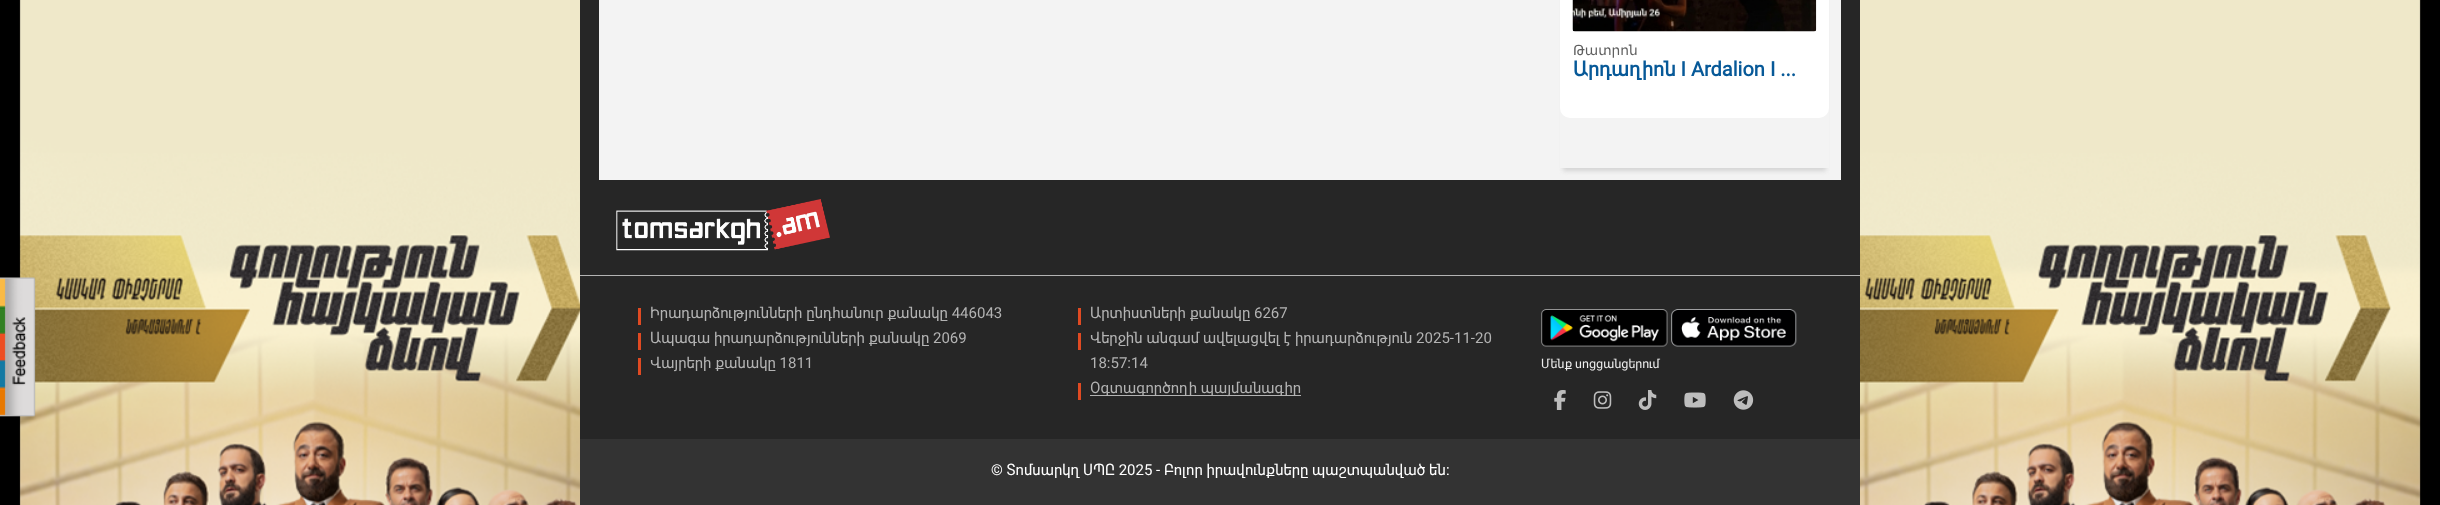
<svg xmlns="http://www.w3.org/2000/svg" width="2440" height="505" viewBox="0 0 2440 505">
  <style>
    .t1 { font: 13.75px DejaVu Sans; fill: #5f5f5f; }
    .t2 { font: bold 20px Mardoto; fill: #075998; }
    .t3 { font: 15px Mardoto; fill: #b3b3b3; }
    .t4 { font: 12.5px Mardoto; fill: #eee; }
    .t5 { font: 15px Mardoto; fill: #fff; }
  </style>
  <defs>
    <clipPath id="clip1"><path d="M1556 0H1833V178H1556ZM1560-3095H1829V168H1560Z" clip-rule="evenodd"/></clipPath>
  </defs>
  <rect width="100%" height="100%" fill="#000"/>
  <image x="19" y="0" width="2402" height="505" href="images/1.png"/>
  <rect x="580" y="0" width="1280" height="439" fill="#262626"/>
  <rect x="599" y="0" width="1242" height="180" fill="#f3f3f3"/>
  <g clip-path="url(#clip1)">
    <rect x="1563" y="-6" width="263" height="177" fill="#d3d3d3" filter="blur(2px)"/>
  </g>
  <rect x="1560" y="-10" width="269" height="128" rx="10" fill="#fff"/>
  <image x="1572" y="0" width="245" height="32" href="images/2.png"/>
  <text x="1573" y="55" class="t1">Թատրոն</text>
  <text x="1573" y="76" class="t2">Արդաղիոն I Ardalion I ...</text>
  <image x="0" y="277" width="36" height="143" href="images/3.png"/>
  <rect x="580" y="275" width="1280" height="1" fill="#b3b3b3"/>
  <image x="616" y="199" width="214" height="52" href="images/4.png"/>
  <rect x="638" y="308" width="3" height="17" fill="#e04a22"/>
  <text x="650" y="318" class="t3">Իրադարձությունների ընդհանուր քանակը 446043</text>
  <rect x="638" y="333" width="3" height="17" fill="#e04a22"/>
  <text x="650" y="343" class="t3">Ապագա իրադարձությունների քանակը 2069</text>
  <rect x="638" y="358" width="3" height="17" fill="#e04a22"/>
  <text x="650" y="368" class="t3">Վայրերի քանակը 1811</text>
  <rect x="1078" y="308" width="3" height="17" fill="#e04a22"/>
  <text x="1090" y="318" class="t3">Արտիստների քանակը 6267</text>
  <rect x="1078" y="333" width="3" height="17" fill="#e04a22"/>
  <text x="1090" y="343" class="t3">Վերջին անգամ ավելացվել է իրադարձություն 2025-11-20</text>
  <text x="1090" y="368" class="t3">18:57:14</text>
  <rect x="1078" y="383" width="3" height="17" fill="#e04a22"/>
  <rect x="1090" y="395" width="211" height="1" fill="#b3b3b3"/>
  <text x="1090" y="393" class="t3">Օգտագործողի պայմանագիր</text>
  <image x="1541" y="309" width="127" height="38" href="images/5.png"/>
  <image x="1671" y="309" width="126" height="38" href="images/6.png"/>
  <text x="1541" y="368" class="t4">Մենք սոցցանցերում</text>
  <image x="1554" y="390" width="12" height="20" href="images/7.png"/>
  <image x="1593" y="391" width="19" height="18" href="images/8.png"/>
  <image x="1638" y="390" width="19" height="20" href="images/9.png"/>
  <image x="1684" y="392" width="22" height="16" href="images/10.png"/>
  <image x="1733" y="390" width="21" height="20" href="images/11.png"/>
  <rect x="580" y="439" width="1280" height="66" fill="#333"/>
  <text x="991" y="475" class="t5">© Տոմսարկղ ՍՊԸ 2025 - Բոլոր իրավունքները պաշտպանված են:</text>
</svg>
